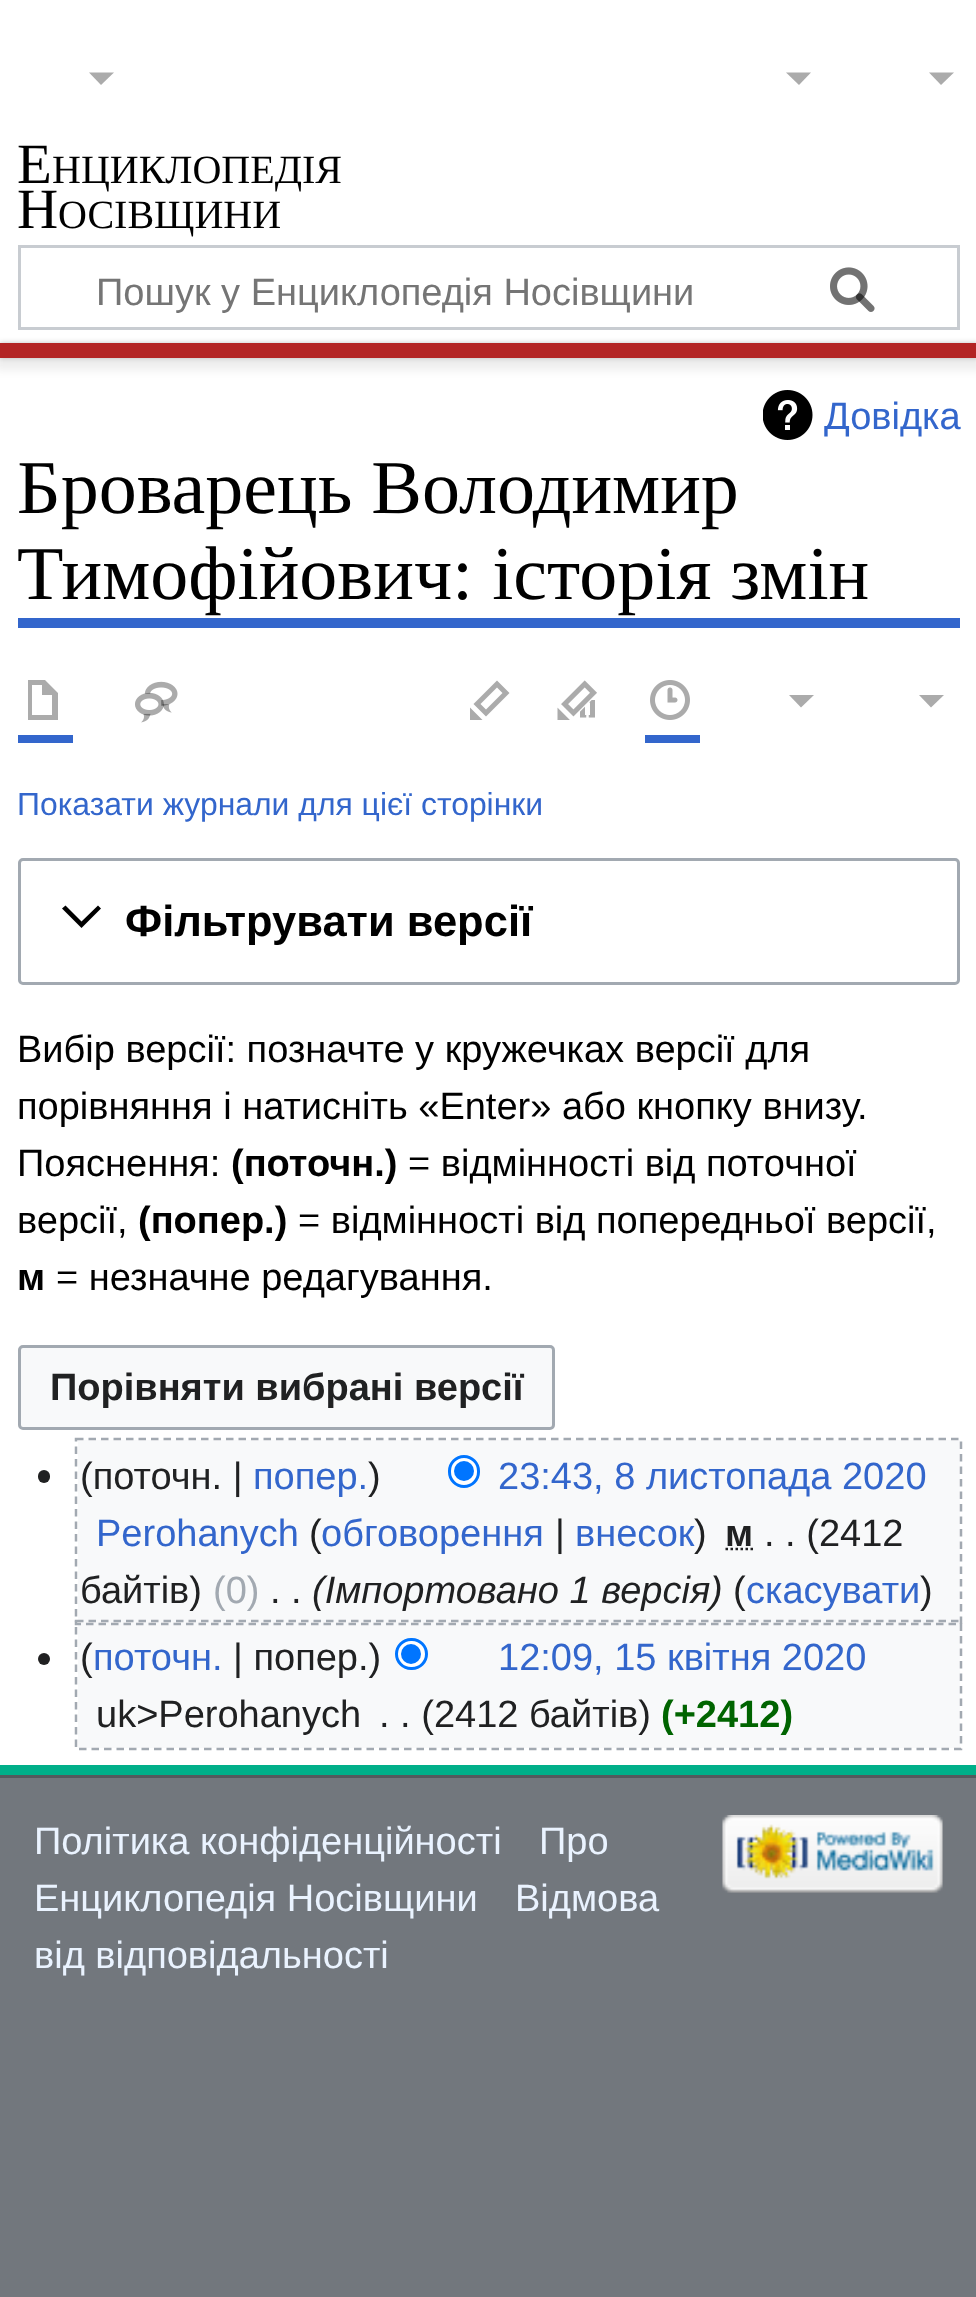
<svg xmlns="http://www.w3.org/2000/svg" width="976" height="2297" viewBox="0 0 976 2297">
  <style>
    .t1 { font: 57px Liberation Serif; fill: #000; }
    .t2 { font: 40px Liberation Serif; fill: #000; }
    .t3 { font: 38px Liberation Sans; fill: #757575; }
    .t4 { font: 38px Liberation Sans; fill: #36c; }
    .t5 { font: 76px Liberation Serif; fill: #000; }
    .t6 { font: 31.9px Liberation Sans; fill: #36c; }
    .t7 { font: bold 43.5px Liberation Sans; fill: #000; }
    .t8 { font: 38px Liberation Sans; fill: #000; }
    .t9 { font: bold 38px Liberation Sans; fill: #000; }
    .t10 { font: bold 38px Liberation Sans; fill: #202122; }
    .t11 { font: 38px Liberation Sans; fill: #202122; }
    .t12 { font: italic 38px Liberation Sans; fill: #202122; }
    .t13 { font: 38px Liberation Sans; fill: #a2a9b1; }
    .t14 { font: bold 38px Liberation Sans; fill: #006400; }
    .t15 { font: 38px Liberation Sans; fill: #eaf3ff; }
  </style>
  <rect width="100%" height="100%" fill="#72777d"/>
  <rect x="0" y="0" width="976" height="343" fill="#fff"/>
  <path d="M954 72.5L941 85L929 72.5Z" fill="#ababab"/>
  <text x="17" y="183" class="t1">Е</text>
  <text x="52" y="183" class="t2">НЦИКЛОПЕДІЯ</text>
  <text x="17" y="228" class="t1">Н</text>
  <text x="58" y="228" class="t2">ОСІВЩИНИ</text>
  <rect x="19.5" y="246.5" width="939" height="82" fill="none" stroke="#c8ccd1" stroke-width="3"/>
  <image x="830" y="267" width="45" height="45" href="images/1.png"/>
  <text x="96" y="305" class="t3">Пошук у Енциклопедія Носівщини</text>
  <image x="830" y="267" width="45" height="45" href="images/2.png"/>
  <rect x="0" y="358" width="976" height="1407" fill="#fff"/>
  <rect x="0" y="343" width="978" height="15" fill="#00000033" filter="blur(2.5px)"/>
  <rect x="-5" y="345" width="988" height="25" fill="#00000012" filter="blur(4px)"/>
  <rect x="0" y="343" width="976" height="15" fill="#b32424"/>
  <rect x="0" y="1765" width="976" height="10" fill="#00af89"/>
  <path d="M114 72.5L101 85L89 72.5Z" fill="#ababab"/>
  <path d="M811 72.5L799 85L786 72.5Z" fill="#ababab"/>
  <image x="763" y="390" width="50" height="50" href="images/3.png"/>
  <text x="824" y="429" class="t4">Довідка</text>
  <rect x="18" y="618" width="942" height="10" fill="#36c"/>
  <text x="17" y="513" class="t5">Броварець Володимир</text>
  <text x="17" y="599" class="t5">Тимофійович: історія змін</text>
  <rect x="18" y="735" width="55" height="8" fill="#36c"/>
  <path d="M28 680V720H58V693L45 680ZM32 685H42V695H52V715H32Z" fill="#ababab"/>
  <image x="135" y="681" width="43" height="42" href="images/4.png"/>
  <path d="M497 680.5L473.5 704L486 716.5L509.5 693ZM497 687.5L502.5 693L486 709.5L480.5 704ZM482.5 720H470V707.5Z" fill="#ababab"/>
  <image x="557" y="680" width="40" height="40" href="images/5.png"/>
  <rect x="645" y="735" width="55" height="8" fill="#36c"/>
  <image x="650" y="680" width="40" height="40" href="images/6.png"/>
  <path d="M814 695L801 707.5L789 695Z" fill="#ababab"/>
  <path d="M944 695L931 707.5L919 695Z" fill="#ababab"/>
  <text x="17" y="815" class="t6">Показати журнали для цієї сторінки</text>
  <rect x="19.5" y="859.5" width="939" height="124" rx="3.5" fill="none" stroke="#a2a9b1" stroke-width="3"/>
  <path d="M98 905.5L81.5 921.5L65.5 905.5L62 908.5L81.5 928L101 908.5Z" fill="#000"/>
  <text x="125" y="936" class="t7">Фільтрувати версії</text>
  <text x="17" y="1062" class="t8">Вибір версії: позначте у кружечках версії для</text>
  <text x="17" y="1119" class="t8">порівняння і натисніть «Enter» або кнопку внизу.</text>
  <text x="17" y="1176" class="t8">Пояснення:</text>
  <text x="231" y="1176" class="t9">(поточн.)</text>
  <text x="408" y="1176" class="t8">= відмінності від поточної</text>
  <text x="17" y="1233" class="t8">версії,</text>
  <text x="138" y="1233" class="t9">(попер.)</text>
  <text x="298" y="1233" class="t8">= відмінності від попередньої версії,</text>
  <text x="17" y="1290" class="t9">м</text>
  <text x="56" y="1290" class="t8">= незначне редагування.</text>
  <rect x="19.5" y="1346.5" width="534" height="82" rx="3.5" fill="#f8f9fa" stroke="#a2a9b1" stroke-width="3"/>
  <text x="50" y="1400" class="t10">Порівняти вибрані версії</text>
  <rect x="78" y="1440" width="882" height="308" fill="#f8f9fa"/>
  <text x="80" y="1489" class="t11">(поточн. |</text>
  <text x="253" y="1489" class="t4">попер.</text>
  <text x="368" y="1489" class="t11">)</text>
  <rect x="449.5" y="1456.5" width="29" height="30" rx="14.5" fill="#fff" stroke="#0075ff" stroke-width="3"/>
  <circle cx="464" cy="1471" r="10" fill="#0075ff"/>
  <text x="498" y="1489" class="t4">23:43, 8 листопада 2020</text>
  <text x="96" y="1546" class="t4">Perohanych</text>
  <text x="309" y="1546" class="t11">(</text>
  <text x="321" y="1546" class="t4">обговорення</text>
  <text x="555" y="1546" class="t11">|</text>
  <text x="575" y="1546" class="t4">внесок</text>
  <text x="694" y="1546" class="t11">)</text>
  <text x="725" y="1546" class="t10">м</text>
  <path d="M725.5 1549H753.5" fill="none" stroke="#202122" stroke-width="2.5" stroke-dasharray="2.5 2.5"/>
  <text x="764" y="1546" class="t11">. . (2412</text>
  <text x="80" y="1603" class="t11">байтів)</text>
  <text x="270" y="1603" class="t11">. .</text>
  <text x="312" y="1603" class="t12">(Імпортовано 1 версія</text>
  <text x="710" y="1603" class="t12">)</text>
  <text x="733" y="1603" class="t11">(</text>
  <text x="746" y="1603" class="t4">скасувати</text>
  <text x="920" y="1603" class="t11">)</text>
  <path d="M76 1439H961V1624H76Z" fill="none" stroke="#a2a9b1" stroke-width="2.5" stroke-dasharray="7.5 5"/>
  <rect x="38" y="1470" width="12" height="13" rx="6" fill="#202122"/>
  <text x="213" y="1603" class="t13">(0)</text>
  <text x="80" y="1670" class="t11">(</text>
  <text x="93" y="1670" class="t4">поточн.</text>
  <text x="233" y="1670" class="t11">| попер.)</text>
  <rect x="396.5" y="1639.5" width="30" height="29" rx="14.5" fill="#fff" stroke="#0075ff" stroke-width="3"/>
  <circle cx="411" cy="1654" r="10" fill="#0075ff"/>
  <text x="498" y="1670" class="t4">12:09, 15 квітня 2020</text>
  <text x="96" y="1727" class="t11">uk&gt;Perohanych</text>
  <text x="379" y="1727" class="t11">. . (2412 байтів)</text>
  <text x="661" y="1727" class="t14">(+2412)</text>
  <path d="M76 1621H961V1749H76Z" fill="none" stroke="#a2a9b1" stroke-width="2.5" stroke-dasharray="7.5 5"/>
  <circle cx="44" cy="1659" r="6" fill="#202122"/>
  <rect x="0" y="1775" width="976" height="3" fill="#54595d"/>
  <text x="34" y="1854" class="t15">Політика конфіденційності</text>
  <text x="539" y="1854" class="t15">Про</text>
  <text x="34" y="1911" class="t15">Енциклопедія Носівщини</text>
  <text x="515" y="1911" class="t15">Відмова</text>
  <text x="34" y="1968" class="t15">від відповідальності</text>
  <image x="722" y="1815" width="221" height="78" href="images/7.png"/>
</svg>
